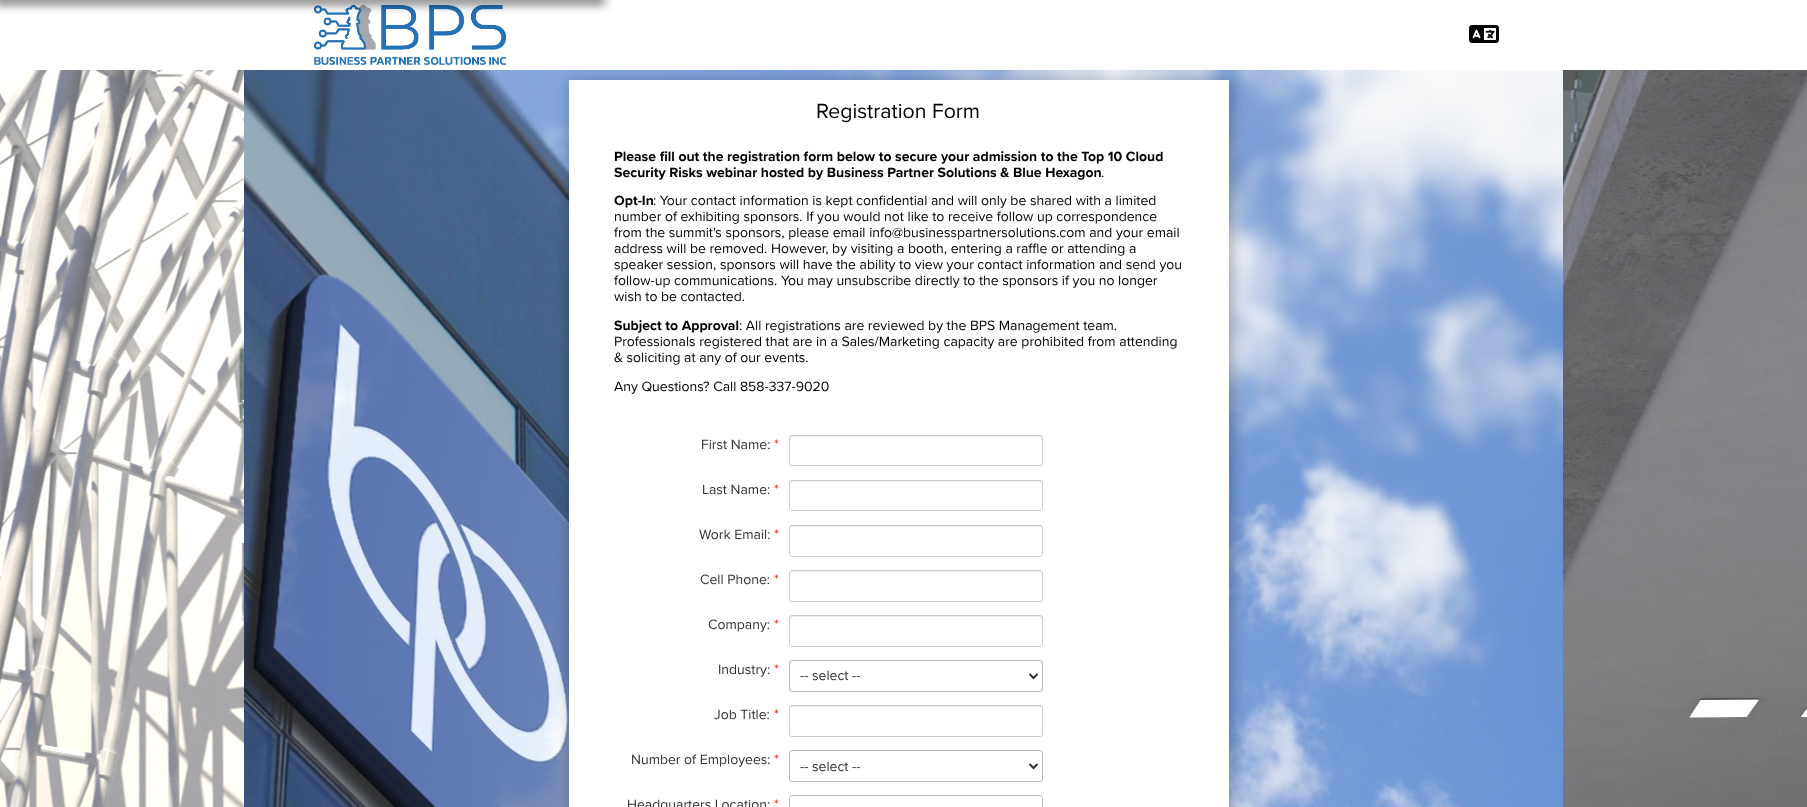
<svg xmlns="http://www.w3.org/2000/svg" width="1807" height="807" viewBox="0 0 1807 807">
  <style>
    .t1 { font: 21.25px Proxima Nova; fill: #000; }
    .t2 { font: bold 14px Proxima Nova; fill: #000; }
    .t3 { font: 14px Proxima Nova; fill: #000; }
    .t4 { font: 14px Proxima Nova; fill: #333; }
    .t5 { font: 14px Proxima Nova; fill: #f00; }
  </style>
  <rect width="100%" height="100%" fill="#fff"/>
  <image x="0" y="70" width="1807" height="737" href="images/1.png"/>
  <image x="314" y="5" width="192" height="60" href="images/2.png"/>
  <rect x="-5" y="-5" width="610" height="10" fill="#00000080" filter="blur(5px)"/>
  <image x="1469" y="25" width="30" height="18" href="images/3.png"/>
  <image x="244" y="70" width="1319" height="737" href="images/4.png"/>
  <rect x="571" y="82" width="660" height="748" fill="#0000004d" filter="blur(7.5px)"/>
  <rect x="569" y="80" width="660" height="727" fill="#fff"/>
  <text x="816" y="118" class="t1">Registration Form</text>
  <text x="614" y="161" class="t2">Please fill out the registration form below to secure your admission to the Top 10 Cloud</text>
  <text x="614" y="177" class="t2">Security Risks webinar hosted by Business Partner Solutions &amp; Blue Hexagon</text>
  <text x="1101" y="177" class="t3">.</text>
  <text x="614" y="205" class="t2">Opt-In</text>
  <text x="653" y="205" class="t3">: Your contact information is kept confidential and will only be shared with a limited</text>
  <text x="614" y="221" class="t3">number of exhibiting sponsors. If you would not like to receive follow up correspondence</text>
  <text x="614" y="237" class="t3">from the summit's sponsors, please email info@businesspartnersolutions.com and your email</text>
  <text x="614" y="253" class="t3">address will be removed. However, by visiting a booth, entering a raffle or attending a</text>
  <text x="614" y="269" class="t3">speaker session, sponsors will have the ability to view your contact information and send you</text>
  <text x="614" y="285" class="t3">follow-up communications. You may unsubscribe directly to the sponsors if you no longer</text>
  <text x="614" y="301" class="t3">wish to be contacted.</text>
  <text x="614" y="330" class="t2">Subject to Approval</text>
  <text x="739" y="330" class="t3">: All registrations are reviewed by the BPS Management team.</text>
  <text x="614" y="346" class="t3">Professionals registered that are in a Sales/Marketing capacity are prohibited from attending</text>
  <text x="614" y="362" class="t3">&amp; soliciting at any of our events.</text>
  <text x="614" y="391" class="t3">Any Questions? Call 858-337-9020</text>
  <text x="701" y="449" class="t4">First Name:</text>
  <text x="774" y="449" class="t5">*</text>
  <path d="M792 437H1040C1041 437 1042 438 1042 439C1042 438 1042 436 1040 436H792C790 436 790 438 790 439C790 438 791 437 792 437Z" fill="#ececec"/>
  <rect x="789.5" y="435.5" width="253" height="30" rx="2.5" fill="none" stroke="#ccc"/>
  <text x="702" y="494" class="t4">Last Name:</text>
  <text x="774" y="494" class="t5">*</text>
  <path d="M792 482H1040C1041 482 1042 483 1042 484C1042 483 1042 481 1040 481H792C790 481 790 483 790 484C790 483 791 482 792 482Z" fill="#ececec"/>
  <rect x="789.5" y="480.5" width="253" height="30" rx="2.5" fill="none" stroke="#ccc"/>
  <text x="699" y="539" class="t4">Work Email:</text>
  <text x="774" y="539" class="t5">*</text>
  <path d="M792 527H1040C1041 527 1042 528 1042 529C1042 528 1042 526 1040 526H792C790 526 790 528 790 529C790 528 791 527 792 527Z" fill="#ececec"/>
  <rect x="789.5" y="525.5" width="253" height="31" rx="2.5" fill="none" stroke="#ccc"/>
  <text x="700" y="584" class="t4">Cell Phone:</text>
  <text x="774" y="584" class="t5">*</text>
  <path d="M792 572H1040C1041 572 1042 573 1042 574C1042 573 1042 571 1040 571H792C790 571 790 573 790 574C790 573 791 572 792 572Z" fill="#ececec"/>
  <rect x="789.5" y="570.5" width="253" height="31" rx="2.5" fill="none" stroke="#ccc"/>
  <text x="708" y="629" class="t4">Company:</text>
  <text x="774" y="629" class="t5">*</text>
  <path d="M792 617H1040C1041 617 1042 618 1042 619C1042 618 1042 616 1040 616H792C790 616 790 618 790 619C790 618 791 617 792 617Z" fill="#ececec"/>
  <rect x="789.5" y="615.5" width="253" height="31" rx="2.5" fill="none" stroke="#ccc"/>
  <text x="718" y="674" class="t4">Industry:</text>
  <text x="774" y="674" class="t5">*</text>
  <rect x="789.5" y="660.5" width="253" height="31" rx="2.5" fill="none" stroke="#bbb"/>
  <path d="M1029.5 674L1033.5 678L1037.5 674" fill="none" stroke="#333" stroke-width="2"/>
  <text x="800" y="680" class="t4">-- select --</text>
  <text x="714" y="719" class="t4">Job Title:</text>
  <text x="774" y="719" class="t5">*</text>
  <path d="M792 707H1040C1041 707 1042 708 1042 709C1042 708 1042 706 1040 706H792C790 706 790 708 790 709C790 708 791 707 792 707Z" fill="#ececec"/>
  <rect x="789.5" y="705.5" width="253" height="31" rx="2.5" fill="none" stroke="#ccc"/>
  <text x="631" y="764" class="t4">Number of Employees:</text>
  <text x="774" y="764" class="t5">*</text>
  <rect x="789.5" y="750.5" width="253" height="31" rx="2.5" fill="none" stroke="#bbb"/>
  <path d="M1029.5 764L1033.5 768L1037.5 764" fill="none" stroke="#333" stroke-width="2"/>
  <text x="800" y="771" class="t4">-- select --</text>
  <text x="627" y="809" class="t4">Headquarters Location:</text>
  <text x="774" y="809" class="t5">*</text>
  <rect x="789.5" y="795.5" width="253" height="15" rx="2.5" fill="none" stroke="#bbb"/>
</svg>
